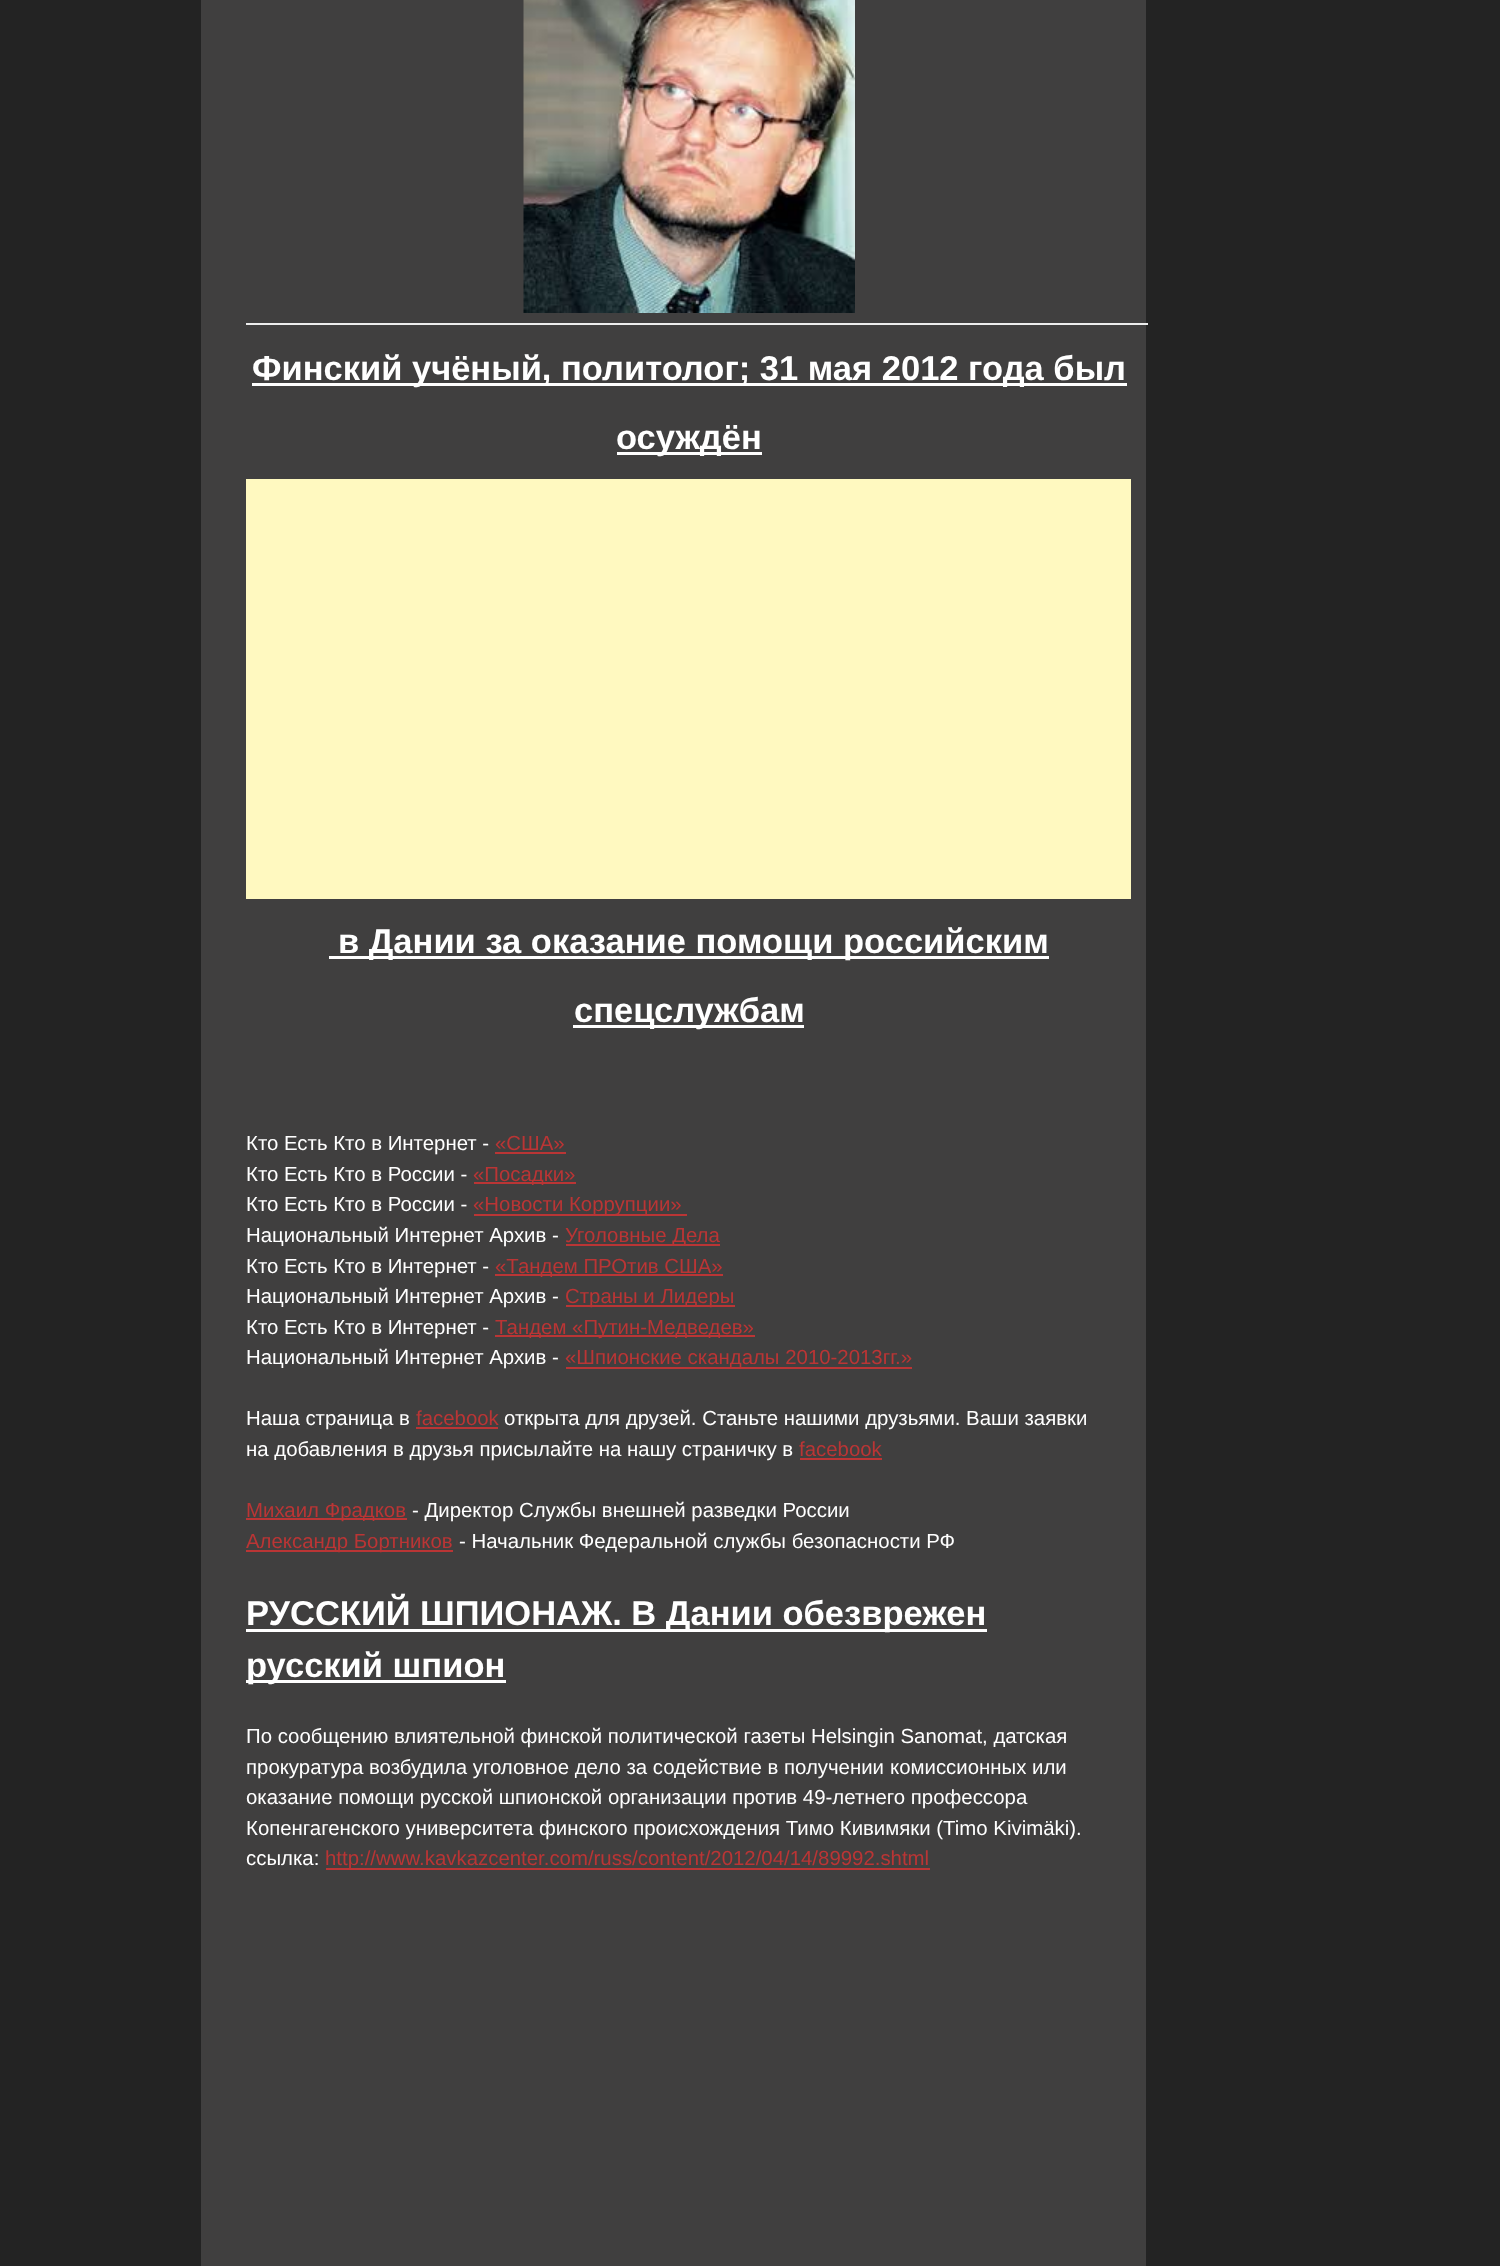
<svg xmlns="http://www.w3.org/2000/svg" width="1500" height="2266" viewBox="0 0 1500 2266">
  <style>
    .t1 { font: bold 34.5px Liberation Sans; fill: #fff; }
    .t2 { font: 20.4px Liberation Sans; fill: #fff; }
    .t3 { font: 20.4px Liberation Sans; fill: #ba3535; }
  </style>
  <rect width="100%" height="100%" fill="#232323"/>
  <rect x="201" y="0" width="945" height="2266" fill="#403f3f"/>
  <image x="523" y="0" width="332" height="313" href="images/1.png"/>
  <rect x="246" y="323" width="902" height="2" fill="#ededed"/>
  <rect x="252" y="383" width="875" height="3" fill="#fff"/>
  <text x="252" y="380" class="t1">Финский учёный, политолог; 31 мая 2012 года был</text>
  <rect x="617" y="452" width="145" height="3" fill="#fff"/>
  <text x="616" y="449" class="t1">осуждён</text>
  <rect x="246" y="479" width="885" height="420" fill="#fff9c0"/>
  <rect x="329" y="956" width="720" height="3" fill="#fff"/>
  <text x="338" y="953" class="t1">в Дании за оказание помощи российским</text>
  <rect x="573" y="1025" width="231" height="3" fill="#fff"/>
  <text x="574" y="1022" class="t1">спецслужбам</text>
  <text x="246" y="1150" class="t2">Кто Есть Кто в Интернет -</text>
  <text x="495" y="1150" class="t3">«США»</text>
  <rect x="495" y="1152" width="71" height="2" fill="#ba3535"/>
  <text x="246" y="1181" class="t2">Кто Есть Кто в России -</text>
  <rect x="474" y="1182" width="102" height="2" fill="#ba3535"/>
  <text x="473" y="1181" class="t3">«Посадки»</text>
  <text x="246" y="1211" class="t2">Кто Есть Кто в России -</text>
  <rect x="474" y="1214" width="213" height="2" fill="#ba3535"/>
  <text x="473" y="1211" class="t3">«Новости Коррупции»</text>
  <text x="246" y="1242" class="t2">Национальный Интернет Архив -</text>
  <rect x="566" y="1244" width="154" height="2" fill="#ba3535"/>
  <text x="565" y="1242" class="t3">Уголовные Дела</text>
  <text x="246" y="1273" class="t2">Кто Есть Кто в Интернет -</text>
  <rect x="495" y="1274" width="228" height="2" fill="#ba3535"/>
  <text x="495" y="1273" class="t3">«Тандем ПРОтив США»</text>
  <text x="246" y="1303" class="t2">Национальный Интернет Архив -</text>
  <rect x="566" y="1305" width="169" height="2" fill="#ba3535"/>
  <text x="565" y="1303" class="t3">Страны и Лидеры</text>
  <text x="246" y="1334" class="t2">Кто Есть Кто в Интернет -</text>
  <rect x="495" y="1335" width="260" height="2" fill="#ba3535"/>
  <text x="495" y="1334" class="t3">Тандем «Путин-Медведев»</text>
  <text x="246" y="1364" class="t2">Национальный Интернет Архив -</text>
  <rect x="566" y="1367" width="346" height="2" fill="#ba3535"/>
  <text x="565" y="1364" class="t3">«Шпионские скандалы 2010-2013гг.»</text>
  <text x="246" y="1425" class="t2">Наша страница в</text>
  <text x="416" y="1425" class="t3">facebook</text>
  <rect x="416" y="1427" width="82" height="2" fill="#ba3535"/>
  <text x="504" y="1425" class="t2">открыта для друзей. Станьте нашими друзьями. Ваши заявки</text>
  <text x="246" y="1456" class="t2">на добавления в друзья присылайте на нашу страничку в</text>
  <text x="799" y="1456" class="t3">facebook</text>
  <rect x="800" y="1458" width="82" height="2" fill="#ba3535"/>
  <rect x="246" y="1518" width="161" height="2" fill="#ba3535"/>
  <text x="246" y="1517" class="t3">Михаил Фрадков</text>
  <text x="412" y="1517" class="t2">- Директор Службы внешней разведки России</text>
  <rect x="246" y="1550" width="207" height="2" fill="#ba3535"/>
  <text x="246" y="1548" class="t3">Александр Бортников</text>
  <text x="459" y="1548" class="t2">- Начальник Федеральной службы безопасности РФ</text>
  <rect x="246" y="1629" width="741" height="3" fill="#fff"/>
  <text x="246" y="1625" class="t1">РУССКИЙ ШПИОНАЖ. В Дании обезврежен</text>
  <rect x="246" y="1680" width="260" height="3" fill="#fff"/>
  <text x="246" y="1677" class="t1">русский шпион</text>
  <text x="246" y="1743" class="t2">По сообщению влиятельной финской политической газеты Helsingin Sanоmat, датская</text>
  <text x="246" y="1774" class="t2">прокуратура возбудила уголовное дело за содействие в получении</text>
  <text x="890" y="1774" class="t2">комиссионных или</text>
  <text x="246" y="1804" class="t2">оказание помощи русской шпионской организации против 49-летнего профессора</text>
  <text x="246" y="1835" class="t2">Копенгагенского университета финского происхождения Тимо Кивимяки (Timo Kivimäki).</text>
  <text x="246" y="1865" class="t2">ссылка:</text>
  <rect x="326" y="1868" width="268" height="2" fill="#ba3535"/>
  <text x="325" y="1865" class="t3">http://www.kavkazcenter.com/russ/content/2012/04/14/89992.shtml</text>
  <rect x="594" y="1868" width="336" height="2" fill="#ba3535"/>
</svg>
